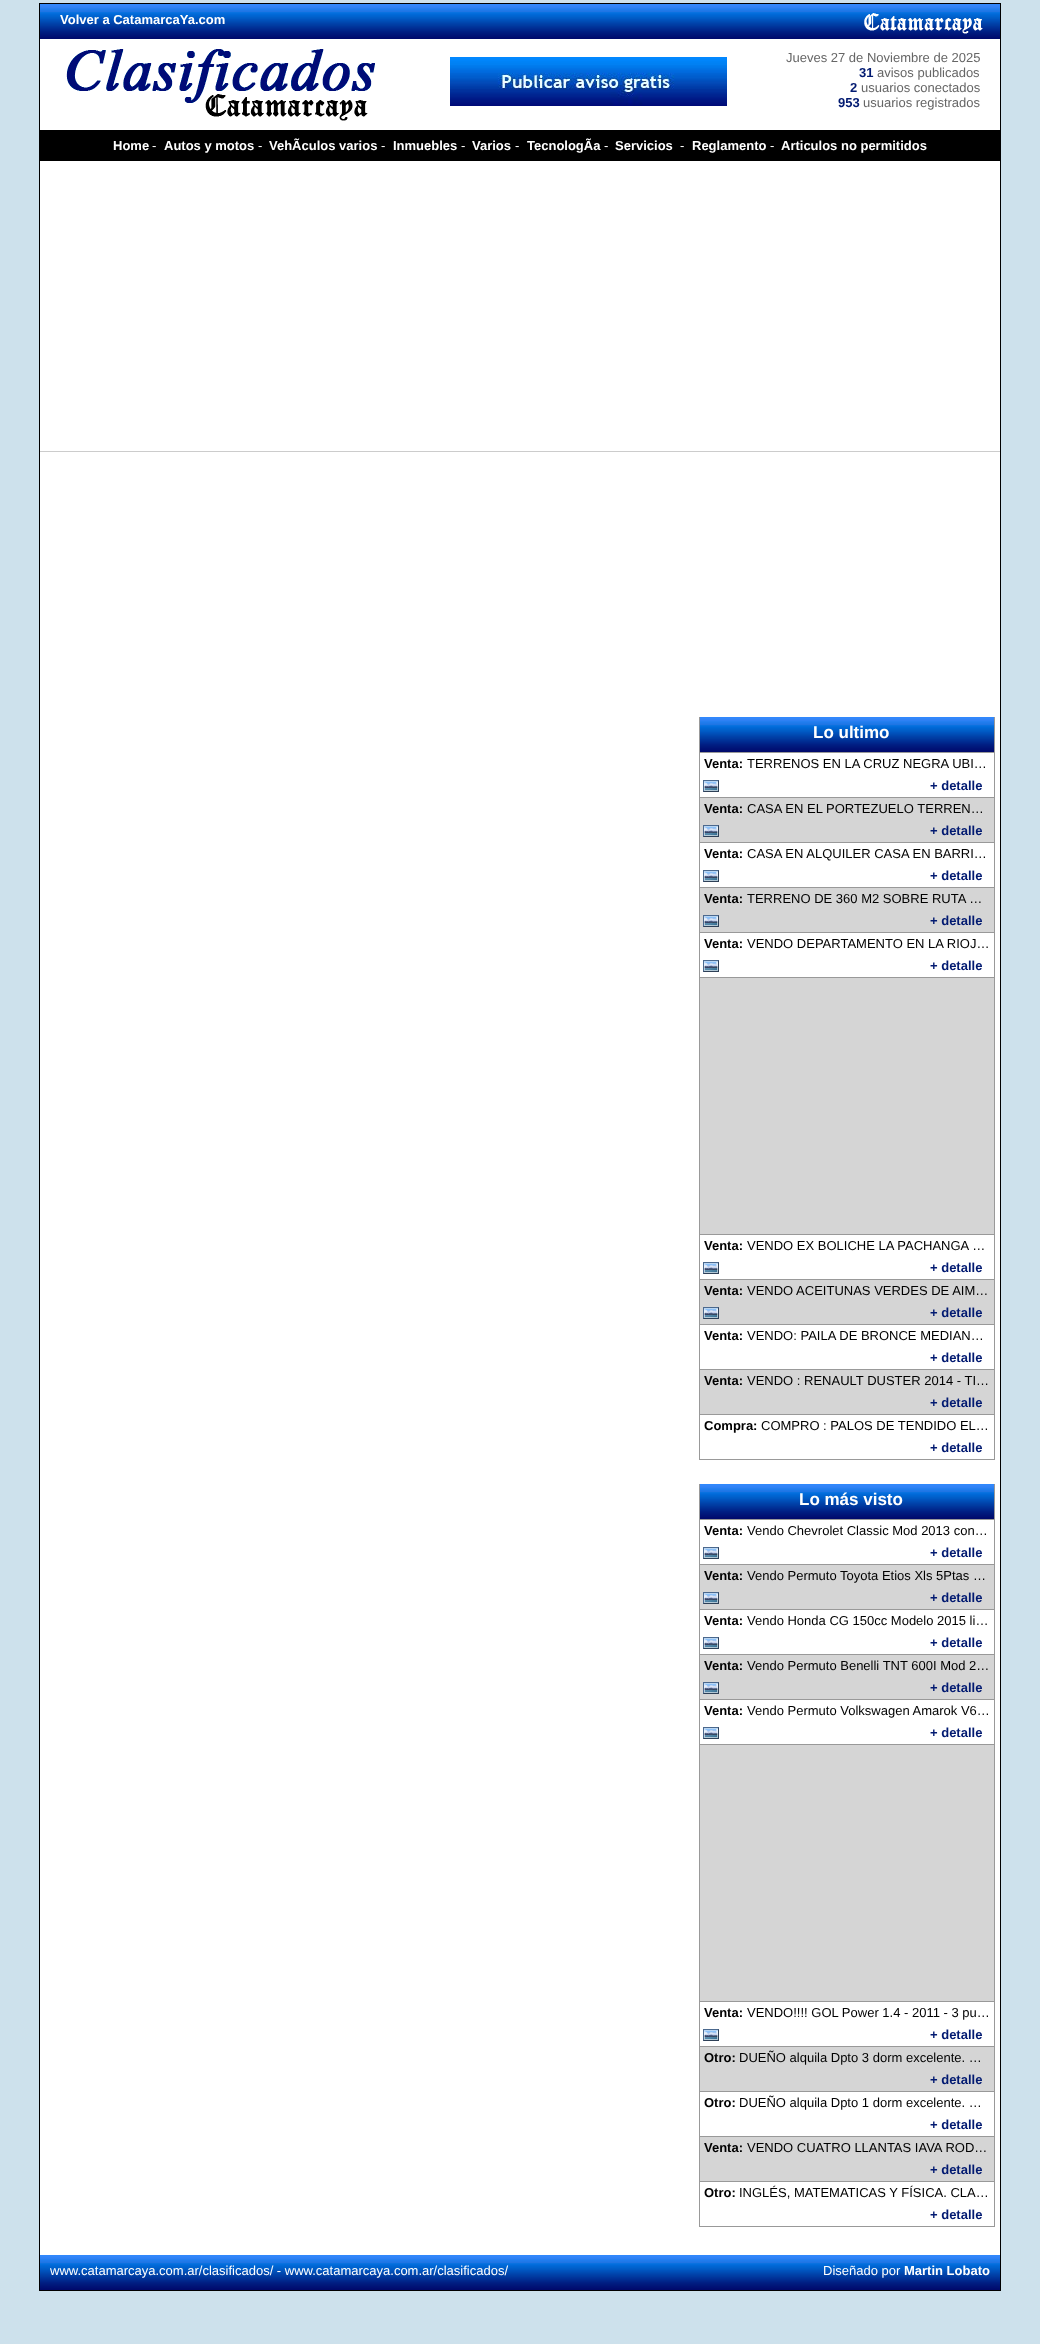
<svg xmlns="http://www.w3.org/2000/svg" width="1040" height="2344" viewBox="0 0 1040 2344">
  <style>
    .t1 { font: bold 13px Liberation Sans; fill: #fff; }
    .t2 { font: 13px Liberation Sans; fill: #666; }
    .t3 { font: bold 13px Liberation Sans; fill: #021a71; }
    .t4 { font: 13px Liberation Sans; fill: #fff; }
    .t5 { font: bold 17px Liberation Sans; fill: #fff; }
    .t6 { font: bold 13px Liberation Sans; fill: #000; }
    .t7 { font: 13px Liberation Sans; fill: #000; }
  </style>
  <rect width="100%" height="100%" fill="#cde1ec"/>
  <rect x="39.5" y="3.5" width="961" height="2287" fill="none" stroke="#000"/>
  <image x="40" y="4" width="960" height="35" href="images/1.png"/>
  <text x="60" y="24" class="t1">Volver a CatamarcaYa.com</text>
  <image x="864" y="13" width="119" height="21" href="images/2.png"/>
  <rect x="40" y="39" width="960" height="91" fill="#fff"/>
  <image x="66" y="49" width="309" height="72" href="images/3.png"/>
  <image x="450" y="57" width="277" height="49" href="images/4.png"/>
  <text x="786" y="62" class="t2">Jueves 27 de Noviembre de 2025</text>
  <text x="859" y="77" class="t3">31</text>
  <text x="877" y="77" class="t2">avisos publicados</text>
  <text x="850" y="92" class="t3">2</text>
  <text x="861" y="92" class="t2">usuarios conectados</text>
  <text x="838" y="107" class="t3">953</text>
  <text x="863" y="107" class="t2">usuarios registrados</text>
  <rect x="40" y="130" width="960" height="31" fill="#000"/>
  <text x="113" y="150" class="t1">Home</text>
  <text x="152" y="150" class="t4">-</text>
  <text x="164" y="150" class="t1">Autos y motos</text>
  <text x="258" y="150" class="t4">-</text>
  <text x="269" y="150" class="t1">VehÃculos varios</text>
  <text x="381" y="150" class="t4">-</text>
  <text x="393" y="150" class="t1">Inmuebles</text>
  <text x="461" y="150" class="t4">-</text>
  <text x="472" y="150" class="t1">Varios</text>
  <text x="515" y="150" class="t4">-</text>
  <text x="527" y="150" class="t1">TecnologÃa</text>
  <text x="604" y="150" class="t4">-</text>
  <text x="615" y="150" class="t1">Servicios</text>
  <text x="680" y="150" class="t4">-</text>
  <text x="692" y="150" class="t1">Reglamento</text>
  <text x="770" y="150" class="t4">-</text>
  <text x="781" y="150" class="t1">Articulos no permitidos</text>
  <rect x="40" y="161" width="960" height="290" fill="#fff"/>
  <rect x="40" y="451" width="960" height="1" fill="#ccc"/>
  <rect x="40" y="452" width="960" height="1803" fill="#fff"/>
  <rect x="994" y="717" width="1" height="743" fill="#999"/>
  <rect x="699" y="1459" width="296" height="1" fill="#999"/>
  <rect x="699" y="717" width="1" height="743" fill="#999"/>
  <image x="700" y="717" width="294" height="35" href="images/5.png"/>
  <text x="813" y="738" class="t5">Lo ultimo</text>
  <rect x="700" y="752" width="294" height="1" fill="#999"/>
  <text x="704" y="768" class="t6">Venta:</text>
  <text x="747" y="768" class="t7">TERRENOS EN LA CRUZ NEGRA UBI…</text>
  <image x="703" y="780" width="16" height="12" href="images/6.png"/>
  <text x="930" y="790" class="t3">+ detalle</text>
  <rect x="700" y="798" width="294" height="44" fill="#d5d5d5"/>
  <rect x="700" y="797" width="294" height="1" fill="#999"/>
  <text x="704" y="813" class="t6">Venta:</text>
  <text x="747" y="813" class="t7">CASA EN EL PORTEZUELO TERREN…</text>
  <image x="703" y="825" width="16" height="12" href="images/6.png"/>
  <text x="930" y="835" class="t3">+ detalle</text>
  <rect x="700" y="842" width="294" height="1" fill="#999"/>
  <text x="704" y="858" class="t6">Venta:</text>
  <text x="747" y="858" class="t7">CASA EN ALQUILER CASA EN BARRI…</text>
  <image x="703" y="870" width="16" height="12" href="images/6.png"/>
  <text x="930" y="880" class="t3">+ detalle</text>
  <rect x="700" y="888" width="294" height="44" fill="#d5d5d5"/>
  <rect x="700" y="887" width="294" height="1" fill="#999"/>
  <text x="704" y="903" class="t6">Venta:</text>
  <text x="747" y="903" class="t7">TERRENO DE 360 M2 SOBRE RUTA …</text>
  <image x="703" y="915" width="16" height="12" href="images/6.png"/>
  <text x="930" y="925" class="t3">+ detalle</text>
  <rect x="700" y="932" width="294" height="1" fill="#999"/>
  <text x="704" y="948" class="t6">Venta:</text>
  <text x="747" y="948" class="t7">VENDO DEPARTAMENTO EN LA RIOJ…</text>
  <image x="703" y="960" width="16" height="12" href="images/6.png"/>
  <text x="930" y="970" class="t3">+ detalle</text>
  <rect x="700" y="978" width="294" height="256" fill="#d5d5d5"/>
  <rect x="700" y="977" width="294" height="1" fill="#999"/>
  <rect x="700" y="1234" width="294" height="1" fill="#999"/>
  <text x="704" y="1250" class="t6">Venta:</text>
  <text x="747" y="1250" class="t7">VENDO EX BOLICHE LA PACHANGA …</text>
  <image x="703" y="1262" width="16" height="12" href="images/6.png"/>
  <text x="930" y="1272" class="t3">+ detalle</text>
  <rect x="700" y="1280" width="294" height="44" fill="#d5d5d5"/>
  <rect x="700" y="1279" width="294" height="1" fill="#999"/>
  <text x="704" y="1295" class="t6">Venta:</text>
  <text x="747" y="1295" class="t7">VENDO ACEITUNAS VERDES DE AIM…</text>
  <image x="703" y="1307" width="16" height="12" href="images/6.png"/>
  <text x="930" y="1317" class="t3">+ detalle</text>
  <rect x="700" y="1324" width="294" height="1" fill="#999"/>
  <text x="704" y="1340" class="t6">Venta:</text>
  <text x="747" y="1340" class="t7">VENDO: PAILA DE BRONCE MEDIAN…</text>
  <text x="930" y="1362" class="t3">+ detalle</text>
  <rect x="700" y="1370" width="294" height="44" fill="#d5d5d5"/>
  <rect x="700" y="1369" width="294" height="1" fill="#999"/>
  <text x="704" y="1385" class="t6">Venta:</text>
  <text x="747" y="1385" class="t7">VENDO : RENAULT DUSTER 2014 - TI…</text>
  <text x="930" y="1407" class="t3">+ detalle</text>
  <rect x="700" y="1414" width="294" height="1" fill="#999"/>
  <text x="704" y="1430" class="t6">Compra:</text>
  <text x="761" y="1430" class="t7">COMPRO : PALOS DE TENDIDO EL…</text>
  <text x="930" y="1452" class="t3">+ detalle</text>
  <rect x="994" y="1484" width="1" height="743" fill="#999"/>
  <rect x="699" y="2226" width="296" height="1" fill="#999"/>
  <rect x="699" y="1484" width="1" height="743" fill="#999"/>
  <image x="700" y="1484" width="294" height="35" href="images/5.png"/>
  <text x="799" y="1505" class="t5">Lo más visto</text>
  <rect x="700" y="1519" width="294" height="1" fill="#999"/>
  <text x="704" y="1535" class="t6">Venta:</text>
  <text x="747" y="1535" class="t7">Vendo Chevrolet Classic Mod 2013 con…</text>
  <image x="703" y="1547" width="16" height="12" href="images/6.png"/>
  <text x="930" y="1557" class="t3">+ detalle</text>
  <rect x="700" y="1565" width="294" height="44" fill="#d5d5d5"/>
  <rect x="700" y="1564" width="294" height="1" fill="#999"/>
  <text x="704" y="1580" class="t6">Venta:</text>
  <text x="747" y="1580" class="t7">Vendo Permuto Toyota Etios Xls 5Ptas …</text>
  <image x="703" y="1592" width="16" height="12" href="images/6.png"/>
  <text x="930" y="1602" class="t3">+ detalle</text>
  <rect x="700" y="1609" width="294" height="1" fill="#999"/>
  <text x="704" y="1625" class="t6">Venta:</text>
  <text x="747" y="1625" class="t7">Vendo Honda CG 150cc Modelo 2015 li…</text>
  <image x="703" y="1637" width="16" height="12" href="images/6.png"/>
  <text x="930" y="1647" class="t3">+ detalle</text>
  <rect x="700" y="1655" width="294" height="44" fill="#d5d5d5"/>
  <rect x="700" y="1654" width="294" height="1" fill="#999"/>
  <text x="704" y="1670" class="t6">Venta:</text>
  <text x="747" y="1670" class="t7">Vendo Permuto Benelli TNT 600I Mod 2…</text>
  <image x="703" y="1682" width="16" height="12" href="images/6.png"/>
  <text x="930" y="1692" class="t3">+ detalle</text>
  <rect x="700" y="1699" width="294" height="1" fill="#999"/>
  <text x="704" y="1715" class="t6">Venta:</text>
  <text x="747" y="1715" class="t7">Vendo Permuto Volkswagen Amarok V6…</text>
  <image x="703" y="1727" width="16" height="12" href="images/6.png"/>
  <text x="930" y="1737" class="t3">+ detalle</text>
  <rect x="700" y="1745" width="294" height="256" fill="#d5d5d5"/>
  <rect x="700" y="1744" width="294" height="1" fill="#999"/>
  <rect x="700" y="2001" width="294" height="1" fill="#999"/>
  <text x="704" y="2017" class="t6">Venta:</text>
  <text x="747" y="2017" class="t7">VENDO!!!! GOL Power 1.4 - 2011 - 3 pu…</text>
  <image x="703" y="2029" width="16" height="12" href="images/6.png"/>
  <text x="930" y="2039" class="t3">+ detalle</text>
  <rect x="700" y="2047" width="294" height="44" fill="#d5d5d5"/>
  <rect x="700" y="2046" width="294" height="1" fill="#999"/>
  <text x="704" y="2062" class="t6">Otro:</text>
  <text x="739" y="2062" class="t7">DUEÑO alquila Dpto 3 dorm excelente. …</text>
  <text x="930" y="2084" class="t3">+ detalle</text>
  <rect x="700" y="2091" width="294" height="1" fill="#999"/>
  <text x="704" y="2107" class="t6">Otro:</text>
  <text x="739" y="2107" class="t7">DUEÑO alquila Dpto 1 dorm excelente. …</text>
  <text x="930" y="2129" class="t3">+ detalle</text>
  <rect x="700" y="2137" width="294" height="44" fill="#d5d5d5"/>
  <rect x="700" y="2136" width="294" height="1" fill="#999"/>
  <text x="704" y="2152" class="t6">Venta:</text>
  <text x="747" y="2152" class="t7">VENDO CUATRO LLANTAS IAVA ROD…</text>
  <text x="930" y="2174" class="t3">+ detalle</text>
  <rect x="700" y="2181" width="294" height="1" fill="#999"/>
  <text x="704" y="2197" class="t6">Otro:</text>
  <text x="739" y="2197" class="t7">INGLÉS, MATEMATICAS Y FÍSICA. CLA…</text>
  <text x="930" y="2219" class="t3">+ detalle</text>
  <image x="40" y="2255" width="960" height="35" href="images/1.png"/>
  <text x="50" y="2275" class="t4">www.catamarcaya.com.ar/clasificados/ - www.catamarcaya.com.ar/clasificados/</text>
  <text x="823" y="2275" class="t4">Diseñado por</text>
  <text x="904" y="2275" class="t1">Martin Lobato</text>
</svg>
